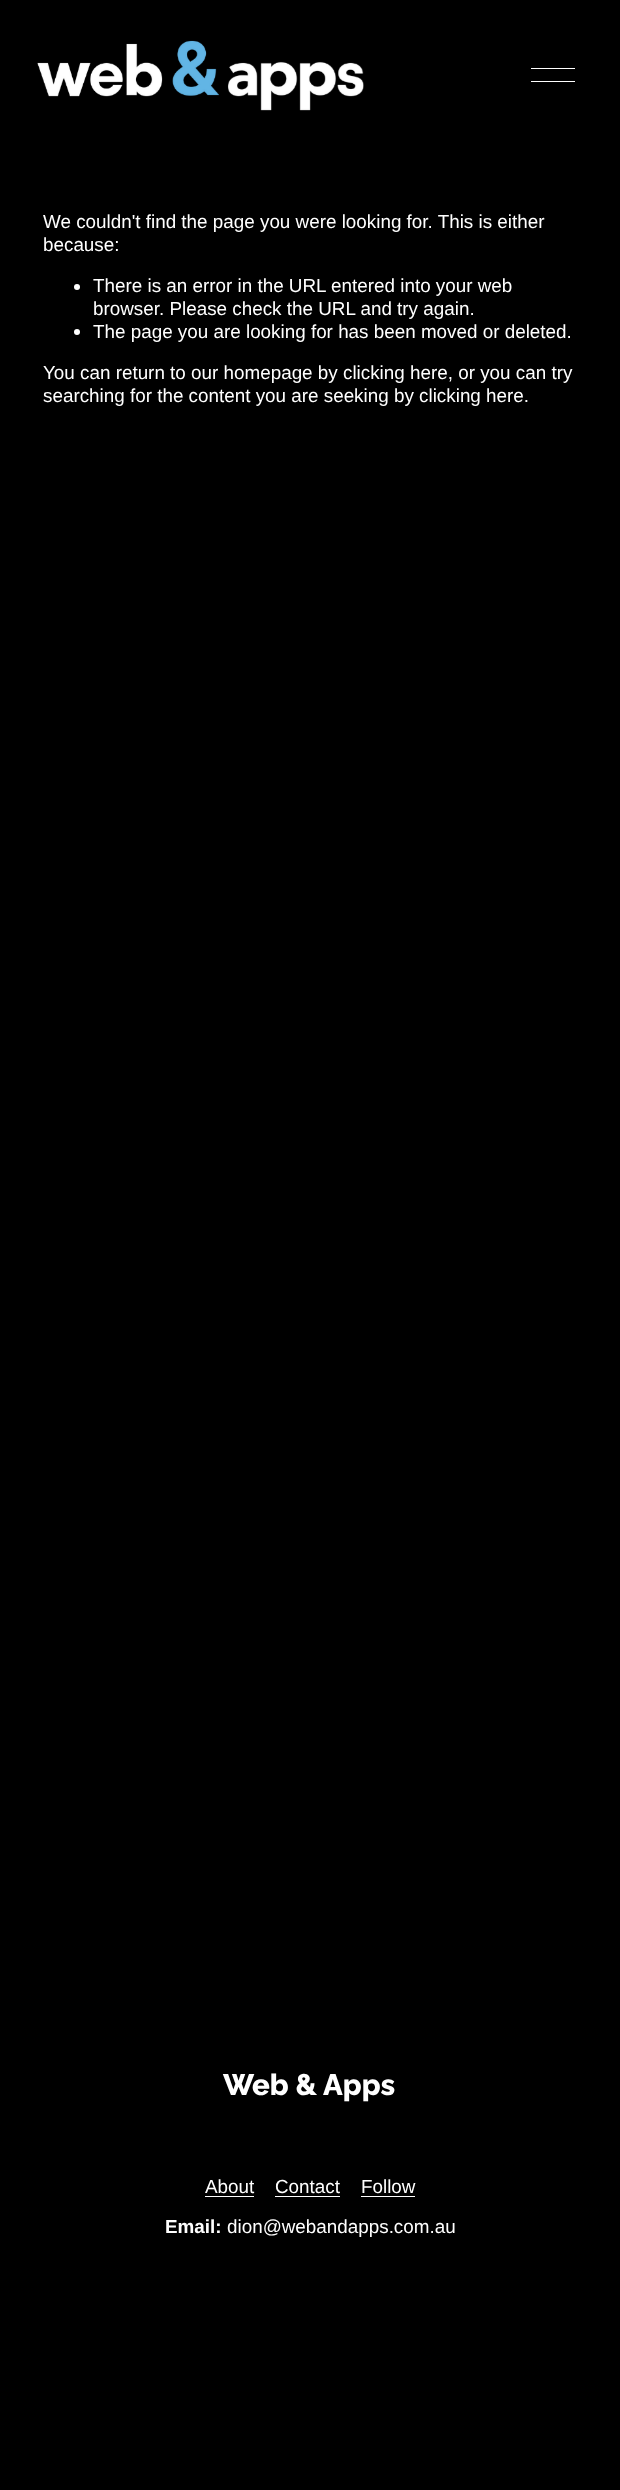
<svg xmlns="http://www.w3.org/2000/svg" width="620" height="2490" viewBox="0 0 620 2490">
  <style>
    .t1 { font: 18.85px Liberation Sans; fill: #fff; }
    .t2 { font: 800 29.5px Raleway; fill: #fff; }
    .t3 { font: bold 18.85px Liberation Sans; fill: #fff; }
  </style>
  <rect width="100%" height="100%" fill="#000"/>
  <image x="37" y="40" width="327" height="71" href="images/1.png"/>
  <rect x="531" y="68" width="44" height="1" fill="#fff"/>
  <rect x="531" y="81" width="44" height="1" fill="#fff"/>
  <text x="43" y="228" class="t1">We couldn't find the page you were looking for. This is either</text>
  <text x="43" y="251" class="t1">because:</text>
  <circle cx="77" cy="287" r="3" fill="#fff"/>
  <text x="93" y="292" class="t1">There is an error in the URL entered into your web</text>
  <text x="93" y="315" class="t1">browser. Please check the URL and try again.</text>
  <circle cx="77" cy="332" r="3" fill="#fff"/>
  <text x="93" y="338" class="t1">The page you are looking for has been moved or deleted.</text>
  <text x="43" y="379" class="t1">You can return to our homepage by clicking here, or you can try</text>
  <text x="43" y="402" class="t1">searching for the content you are seeking by clicking here.</text>
  <text x="223" y="2095" class="t2">Web &amp; Apps</text>
  <text x="205" y="2193" class="t1">About</text>
  <rect x="205" y="2196" width="49" height="1" fill="#fff"/>
  <text x="275" y="2193" class="t1">Contact</text>
  <rect x="275" y="2196" width="65" height="1" fill="#fff"/>
  <text x="361" y="2193" class="t1">Follow</text>
  <rect x="361" y="2196" width="54" height="1" fill="#fff"/>
  <text x="165" y="2233" class="t3">Email:</text>
  <text x="227" y="2233" class="t1">dion@webandapps.com.au</text>
</svg>
